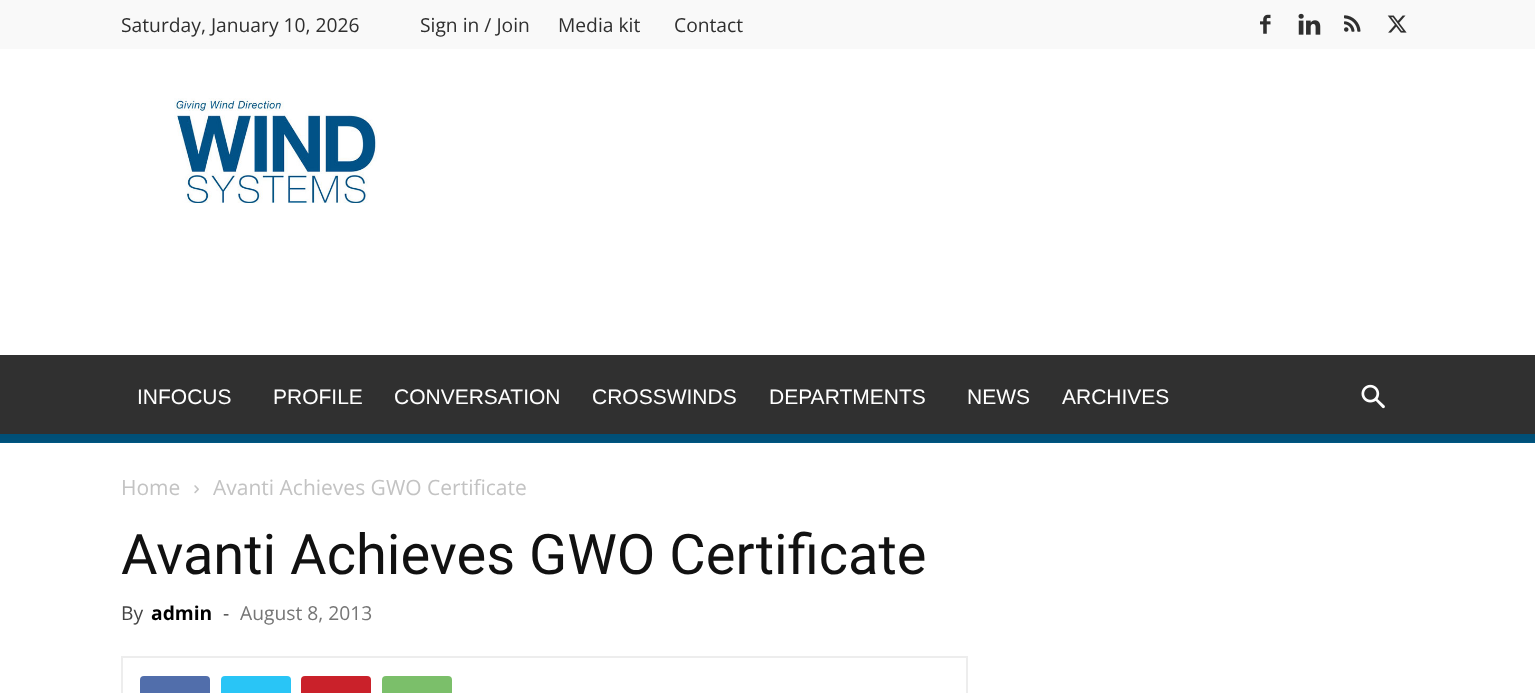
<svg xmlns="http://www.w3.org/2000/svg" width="1535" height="693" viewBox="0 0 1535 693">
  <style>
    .t1 { font: 19.25px Open Sans; fill: #2f2f2f; }
    .t2 { font: 21px Liberation Sans; fill: #fff; }
    .t3 { font: 21px Open Sans; fill: #c3c3c3; }
    .t4 { font: 56px Roboto; fill: #111; }
    .t5 { font: 19.25px Open Sans; fill: #444; }
    .t6 { font: bold 19.25px Open Sans; fill: #000; }
    .t7 { font: 19.25px Open Sans; fill: #767676; }
  </style>
  <rect width="100%" height="100%" fill="#fff"/>
  <rect x="0" y="0" width="1535" height="49" fill="#f9f9f9"/>
  <text x="121" y="32" class="t1">Saturday, January 10, 2026</text>
  <text x="420" y="32" class="t1">Sign in / Join</text>
  <text x="558" y="32" class="t1">Media kit</text>
  <text x="674" y="32" class="t1">Contact</text>
  <image x="1260" y="14" width="11" height="20" href="images/1.png"/>
  <image x="1298" y="13" width="23" height="22" href="images/2.png"/>
  <image x="1344" y="15" width="17" height="17" href="images/3.png"/>
  <image x="1387" y="15" width="20" height="18" href="images/4.png"/>
  <image x="174" y="98" width="203" height="105" href="images/5.png"/>
  <rect x="0" y="355" width="1535" height="79" fill="#303030"/>
  <text x="137" y="404" class="t2">INFOCUS</text>
  <text x="273" y="404" class="t2">PROFILE</text>
  <text x="394" y="404" class="t2">CONVERSATION</text>
  <text x="592" y="404" class="t2">CROSSWINDS</text>
  <text x="769" y="404" class="t2">DEPARTMENTS</text>
  <text x="967" y="404" class="t2">NEWS</text>
  <text x="1062" y="404" class="t2">ARCHIVES</text>
  <image x="1361" y="384" width="24" height="25" href="images/6.png"/>
  <rect x="0" y="434" width="1535" height="9" fill="#005681"/>
  <image x="0" y="434" width="1535" height="8" href="images/7.png"/>
  <text x="121" y="495" class="t3">Home</text>
  <image x="194" y="485" width="5" height="9" href="images/8.png"/>
  <text x="213" y="495" class="t3">Avanti Achieves GWO Certificate</text>
  <text x="121" y="574" class="t4">Avanti Achieves GWO Certificate</text>
  <text x="121" y="620" class="t5">By</text>
  <text x="151" y="620" class="t6">admin</text>
  <text x="223" y="620" class="t5">-</text>
  <text x="240" y="620" class="t7">August 8, 2013</text>
  <rect x="122" y="657" width="845" height="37" fill="none" stroke="#ededed" stroke-width="2"/>
  <rect x="140" y="676" width="70" height="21" rx="4" fill="#516eab"/>
  <rect x="221" y="676" width="70" height="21" rx="4" fill="#29c5f6"/>
  <rect x="301" y="676" width="70" height="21" rx="4" fill="#ca212a"/>
  <rect x="382" y="676" width="70" height="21" rx="4" fill="#7bbf6a"/>
</svg>
